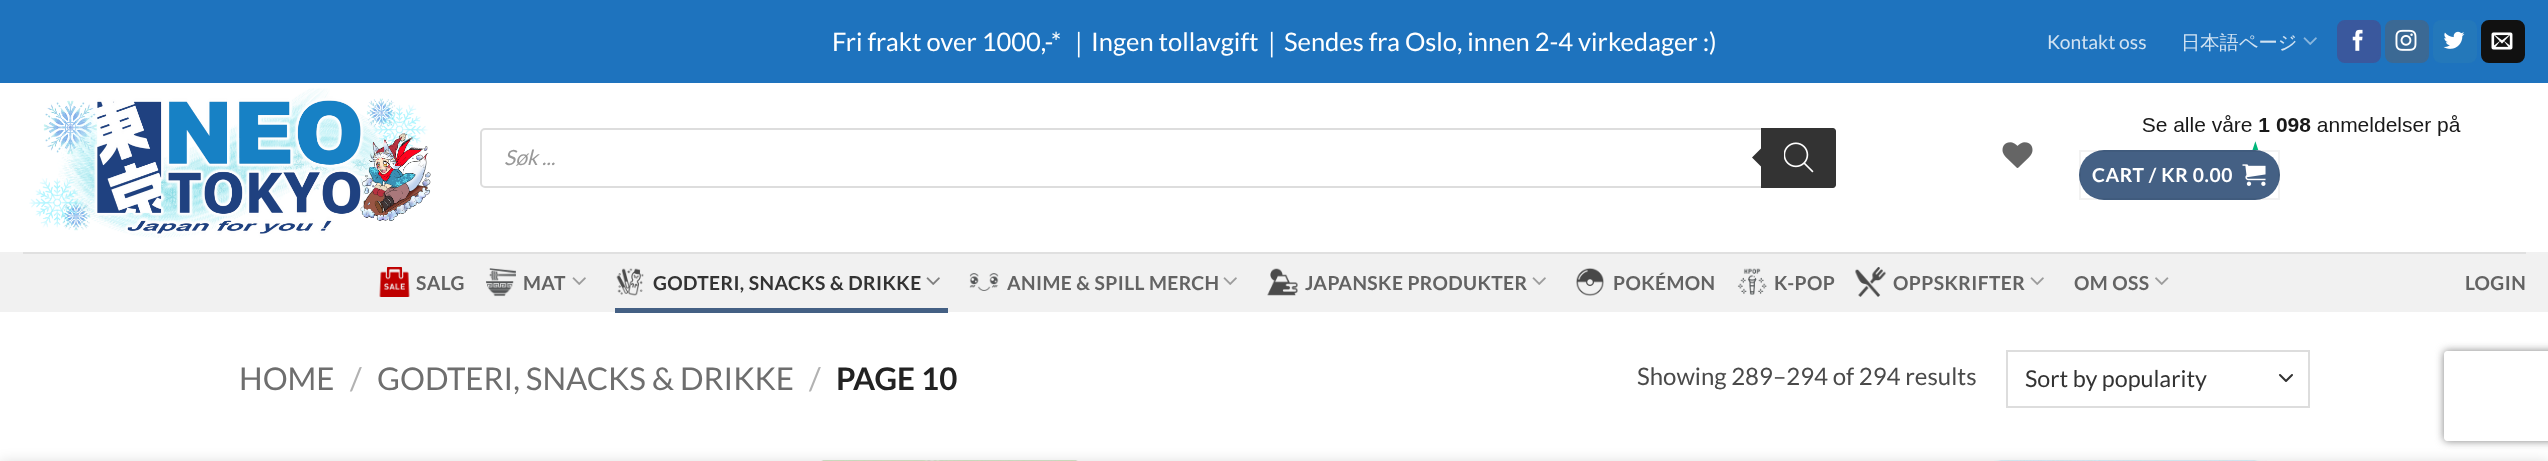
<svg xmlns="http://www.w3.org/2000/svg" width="2548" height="461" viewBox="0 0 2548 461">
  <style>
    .t1 { font: 25.5px Lato; fill: #fff; }
    .t2 { font: 500 25.5px WenQuanYi Zen Hei; fill: #fff; }
    .t3 { font: 19.25px Lato; fill: #d2e3f2; }
    .t4 { font: 500 19.25px WenQuanYi Zen Hei; fill: #d2e3f2; }
    .t5 { font: italic 21px Lato; fill: #999; }
    .t6 { font: bold 19.25px Lato; letter-spacing: 0.6px; fill: #fff; }
    .t7 { font: bold 19.25px Lato; letter-spacing: 0.4px; fill: #636363; }
    .t8 { font: bold 19.25px Lato; letter-spacing: 0.4px; fill: #333; }
    .t9 { font: 31.25px Lato; fill: #6e6e6e; }
    .t10 { font: 31.25px Lato; fill: #b2b2b2; }
    .t11 { font: bold 31.25px Lato; fill: #222; }
    .t12 { font: 24px Lato; fill: #4a4a4a; }
    .t13 { font: 23.25px Lato; fill: #333; }
  </style>
  <defs>
    <clipPath id="clip1"><path d="M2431 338H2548V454H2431ZM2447 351H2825C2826.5 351 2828 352.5 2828 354V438C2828 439.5 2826.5 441 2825 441H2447C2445.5 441 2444 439.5 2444 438V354C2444 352.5 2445.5 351 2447 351Z" clip-rule="evenodd"/></clipPath>
  </defs>
  <rect width="100%" height="100%" fill="#fff"/>
  <rect x="0" y="0" width="2548" height="83" fill="#1e73be"/>
  <text x="832" y="51" class="t1">Fri frakt over 1000,-*</text>
  <text x="1066" y="51" class="t2">｜</text>
  <text x="1091" y="51" class="t1">Ingen tollavgift</text>
  <text x="1259" y="51" class="t2">｜</text>
  <text x="1284" y="51" class="t1">Sendes fra Oslo, innen 2-4 virkedager :)</text>
  <text x="2047" y="49" class="t3">Kontakt oss</text>
  <text x="2181" y="49" class="t4">日本語ページ</text>
  <image x="2303" y="37" width="14" height="8" href="images/1.png"/>
  <rect x="2338" y="21" width="42" height="41" rx="7" fill="#3a589d" stroke="#3a589d" stroke-width="2"/>
  <image x="2352" y="29" width="11" height="22" href="images/2.png"/>
  <rect x="2386" y="21" width="42" height="41" rx="7" fill="#3b6994" stroke="#3b6994" stroke-width="2"/>
  <image x="2395" y="29" width="22" height="22" href="images/3.png"/>
  <rect x="2433" y="20" width="44" height="43" rx="8" fill="#2478ba"/>
  <image x="2443" y="31" width="22" height="18" href="images/4.png"/>
  <rect x="2482" y="21" width="42" height="41" rx="7" fill="#111" stroke="#111" stroke-width="2"/>
  <image x="2491" y="32" width="22" height="18" href="images/5.png"/>
  <image x="29" y="88" width="402" height="152" href="images/6.png"/>
  <rect x="481" y="129" width="1354" height="58" rx="4" fill="none" stroke="#ddd" stroke-width="2"/>
  <text x="504" y="165" class="t5">Søk ...</text>
  <path d="M1761 128H1833C1834.5 128 1836 129.5 1836 131V185C1836 186.5 1834.5 188 1833 188H1761Z" fill="#333"/>
  <path d="M1764 145.5V169.5L1752 157.5Z" fill="#333"/>
  <image x="1784" y="142" width="30" height="31" href="images/7.png"/>
  <image x="2002" y="142" width="31" height="26" href="images/8.png"/>
  <image x="2142" y="115" width="319" height="35" href="images/9.png"/>
  <rect x="2079" y="150" width="201" height="50" rx="25" fill="#446084"/>
  <rect x="2080" y="151" width="199" height="48" fill="none" stroke="#0000000d" stroke-width="2"/>
  <text x="2092" y="182" class="t6">CART / KR 0.00</text>
  <image x="2242" y="164" width="24" height="22" href="images/10.png"/>
  <rect x="0" y="252" width="2548" height="60" fill="#f1f1f1"/>
  <rect x="23" y="252" width="2503" height="2" fill="#e0e0e0"/>
  <image x="379" y="267" width="31" height="30" href="images/11.png"/>
  <text x="416" y="290" class="t7">SALG</text>
  <image x="486" y="268" width="30" height="29" href="images/12.png"/>
  <text x="523" y="290" class="t7">MAT</text>
  <image x="572" y="277" width="14" height="8" href="images/13.png"/>
  <image x="616" y="268" width="28" height="28" href="images/14.png"/>
  <text x="653" y="290" class="t8">GODTERI, SNACKS &amp; DRIKKE</text>
  <image x="926" y="277" width="14" height="8" href="images/15.png"/>
  <rect x="615" y="308" width="333" height="5" fill="#446084"/>
  <image x="969" y="273" width="30" height="18" href="images/16.png"/>
  <text x="1007" y="290" class="t7">ANIME &amp; SPILL MERCH</text>
  <image x="1223" y="277" width="14" height="8" href="images/13.png"/>
  <image x="1267" y="268" width="31" height="28" href="images/17.png"/>
  <text x="1305" y="290" class="t7">JAPANSKE PRODUKTER</text>
  <image x="1532" y="277" width="14" height="8" href="images/13.png"/>
  <image x="1576" y="268" width="28" height="28" href="images/18.png"/>
  <text x="1613" y="290" class="t7">POKÉMON</text>
  <image x="1737" y="268" width="30" height="27" href="images/19.png"/>
  <text x="1774" y="290" class="t7">K-POP</text>
  <image x="1855" y="267" width="31" height="30" href="images/20.png"/>
  <text x="1893" y="290" class="t7">OPPSKRIFTER</text>
  <image x="2030" y="277" width="14" height="8" href="images/13.png"/>
  <text x="2074" y="290" class="t7">OM OSS</text>
  <image x="2155" y="277" width="14" height="8" href="images/21.png"/>
  <text x="2465" y="290" class="t7">LOGIN</text>
  <text x="239" y="390" class="t9">HOME</text>
  <text x="350" y="390" class="t10">/</text>
  <text x="377" y="390" class="t9">GODTERI, SNACKS &amp; DRIKKE</text>
  <text x="809" y="390" class="t10">/</text>
  <text x="836" y="390" class="t11">PAGE 10</text>
  <text x="1637" y="385" class="t12">Showing 289–294 of 294 results</text>
  <path d="M2280 375L2286 381L2292 375" fill="none" stroke="#333" stroke-width="2" stroke-linecap="round" stroke-linejoin="round"/>
  <rect x="2007" y="351" width="302" height="56" fill="none" stroke="#ddd" stroke-width="2"/>
  <text x="2025" y="387" class="t13">Sort by popularity</text>
  <image x="821" y="460" width="257" height="1" href="images/22.png"/>
  <image x="1994" y="460" width="273" height="1" href="images/23.png"/>
  <g clip-path="url(#clip1)">
    <rect x="2444" y="351" width="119" height="90" rx="3" fill="#808080" filter="blur(4px)"/>
  </g>
  <rect x="0" y="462" width="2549" height="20" fill="#00000024" filter="blur(7px)"/>
</svg>
